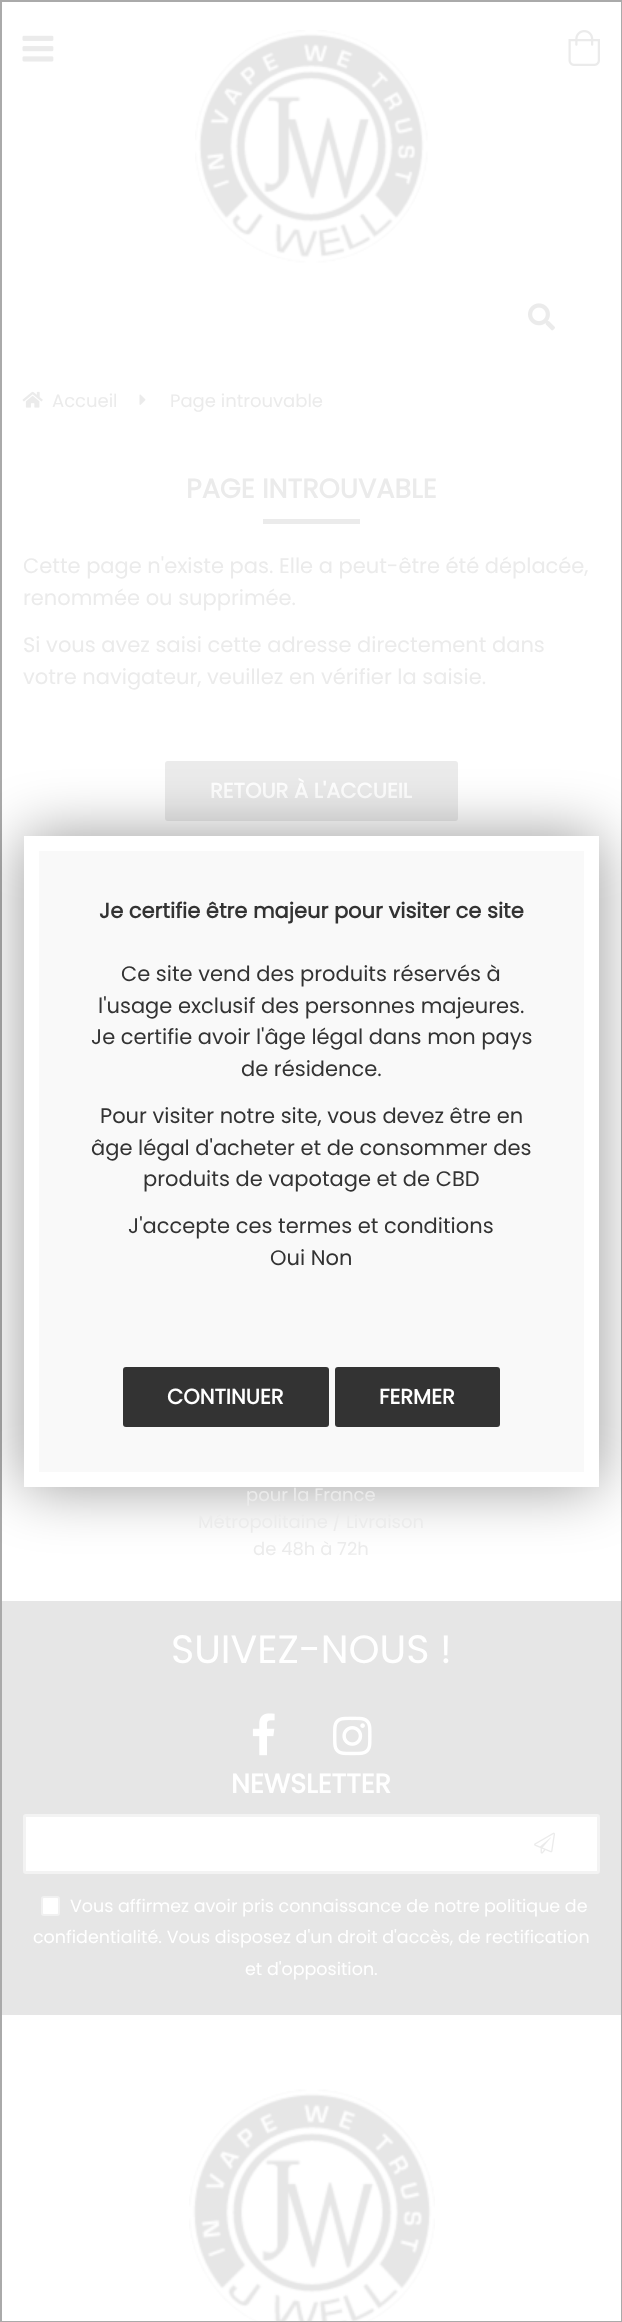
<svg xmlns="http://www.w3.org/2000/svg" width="622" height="2322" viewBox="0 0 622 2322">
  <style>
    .t1 { font: 18px Poppins; fill: #ebebeb; }
    .t2 { font: bold 27px Poppins; fill: #ebebeb; }
    .t3 { font: 21px Poppins; fill: #ebebeb; }
    .t4 { font: bold 21px Poppins; fill: #fff; }
    .t5 { font: bold 21px Poppins; fill: #333; }
    .t6 { font: 21px Poppins; fill: #333; }
    .t7 { font: 39.5px Poppins; fill: #fff; }
    .t8 { font: bold 27px Poppins; fill: #fff; }
    .t9 { font: 17.5px Poppins; fill: #fff; }
  </style>
  <rect width="100%" height="100%" fill="#fff"/>
  <image x="22" y="35" width="32" height="27" href="images/1.png"/>
  <image x="195" y="30" width="233" height="233" href="images/2.png"/>
  <image x="568" y="30" width="32" height="36" href="images/3.png"/>
  <image x="528" y="303" width="27" height="28" href="images/4.png"/>
  <image x="22" y="391" width="21" height="17" href="images/5.png"/>
  <text x="52" y="407" class="t1">Accueil</text>
  <image x="139" y="394" width="7" height="11" href="images/6.png"/>
  <text x="170" y="407" class="t1">Page introuvable</text>
  <text x="186" y="498" class="t2">PAGE INTROUVABLE</text>
  <rect x="263" y="519" width="97" height="5" fill="#ebebeb"/>
  <text x="23" y="573" class="t3">Cette page n'existe pas. Elle a peut-être été déplacée,</text>
  <text x="23" y="605" class="t3">renommée ou supprimée.</text>
  <text x="23" y="652" class="t3">Si vous avez saisi cette adresse directement dans</text>
  <text x="23" y="684" class="t3">votre navigateur, veuillez en vérifier la saisie.</text>
  <rect x="165" y="761" width="293" height="60" rx="3" fill="#ebebeb"/>
  <text x="210" y="798" class="t4">RETOUR À L'ACCUEIL</text>
  <rect x="0" y="0" width="622" height="2" fill="#aaa"/>
  <rect x="621" y="0" width="1" height="2322" fill="#aaa"/>
  <rect x="0" y="2321" width="622" height="1" fill="#aaa"/>
  <rect x="0" y="0" width="2" height="2322" fill="#aaa"/>
  <rect x="24" y="836" width="575" height="651" fill="#00000066" filter="blur(30px)"/>
  <rect x="31.5" y="843.5" width="560" height="636" fill="#f9f9f9" stroke="#fff" stroke-width="15"/>
  <text x="99" y="918" class="t5">Je certifie être majeur pour visiter ce site</text>
  <text x="121" y="981" class="t6">Ce site vend des produits réservés à</text>
  <text x="98" y="1013" class="t6">l'usage exclusif des personnes majeures.</text>
  <text x="91" y="1044" class="t6">Je certifie avoir l'âge légal dans mon pays</text>
  <text x="241" y="1076" class="t6">de résidence.</text>
  <text x="100" y="1123" class="t6">Pour visiter notre site, vous devez être en</text>
  <text x="91" y="1155" class="t6">âge légal d'acheter et de consommer des</text>
  <text x="143" y="1186" class="t6">produits de vapotage et de CBD</text>
  <text x="128" y="1233" class="t6">J'accepte ces termes et conditions</text>
  <text x="270" y="1265" class="t6">Oui Non</text>
  <rect x="123" y="1367" width="206" height="60" rx="3" fill="#333"/>
  <text x="167" y="1404" class="t4">CONTINUER</text>
  <rect x="335" y="1367" width="165" height="60" rx="3" fill="#333"/>
  <text x="379" y="1404" class="t4">FERMER</text>
  <text x="246" y="1501" class="t1">pour la France</text>
  <text x="198" y="1528" class="t1">Métropolitaine / Livraison</text>
  <text x="253" y="1555" class="t1">de 48h à 72h</text>
  <rect x="2" y="1601" width="619" height="414" fill="#e6e6e6"/>
  <text x="171" y="1663" class="t7">SUIVEZ-NOUS !</text>
  <image x="252" y="1713" width="23" height="43" href="images/7.png"/>
  <image x="333" y="1716" width="39" height="40" href="images/8.png"/>
  <text x="231" y="1793" class="t8">NEWSLETTER</text>
  <rect x="24.5" y="1815.5" width="574" height="57" rx="1.5" fill="#fff" stroke="#f3f3f3" stroke-width="3"/>
  <image x="534" y="1832" width="21" height="22" href="images/9.png"/>
  <rect x="42" y="1897" width="17" height="18" rx="2" fill="#fff" stroke="#f1f1f1" stroke-width="2"/>
  <text x="70" y="1912" class="t9">Vous affirmez avoir pris connaissance de notre</text>
  <text x="484" y="1912" class="t9">politique de</text>
  <text x="33" y="1943" class="t9">confidentialité. Vous disposez d'un droit d'accès, de rectification</text>
  <text x="245" y="1975" class="t9">et d'opposition.</text>
  <image x="189" y="2089" width="246" height="232" href="images/10.png"/>
</svg>
